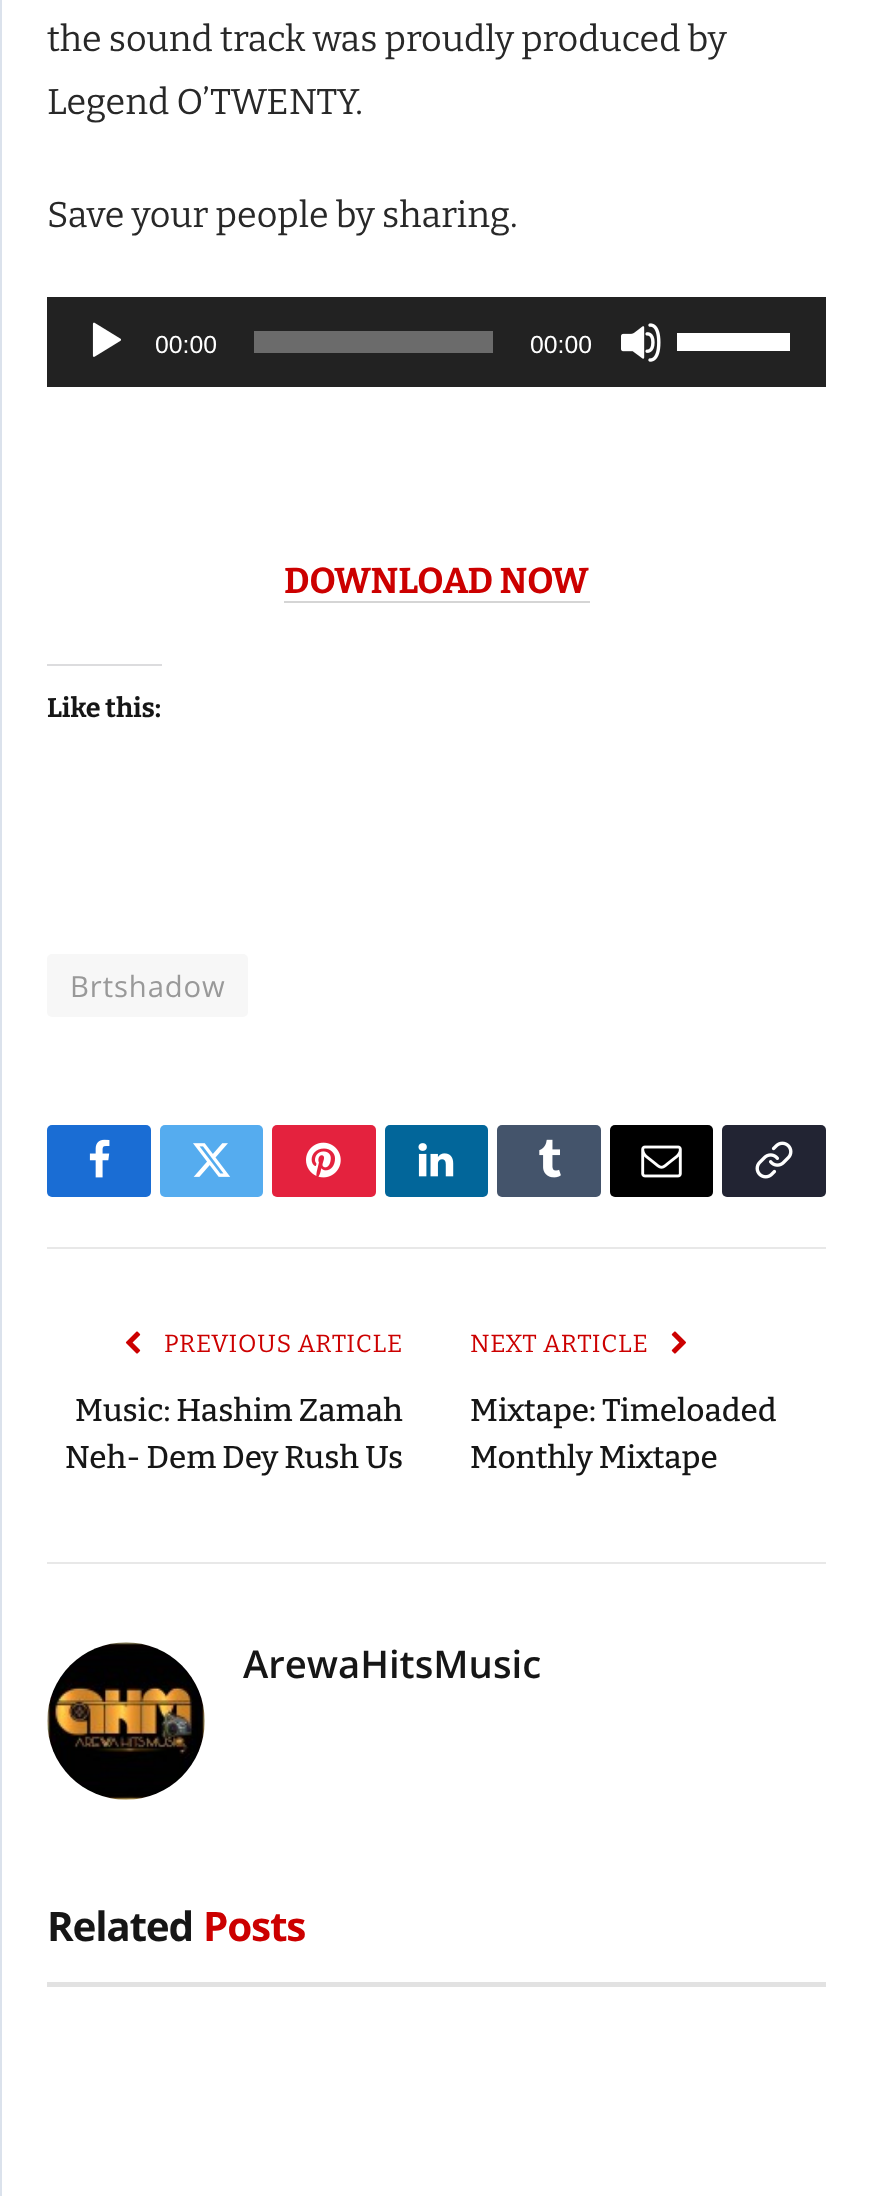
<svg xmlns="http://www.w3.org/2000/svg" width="871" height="2196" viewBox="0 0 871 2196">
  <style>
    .t1 { font: 35.9px Bitter; fill: #282828; }
    .t2 { font: 24.75px Liberation Sans; fill: #fff; }
    .t3 { font: bold 35.9px Bitter; fill: #c00; }
    .t4 { font: bold 27px Bitter; fill: #161616; }
    .t5 { font: 29.25px Open Sans; letter-spacing: 0.9px; fill: #999; }
    .t6 { font: 24.75px Bitter; letter-spacing: 0.75px; fill: #c00; }
    .t7 { font: 500 31.5px Bitter; fill: #161616; }
    .t8 { font: 600 38.25px Open Sans; fill: #161616; }
    .t9 { font: bold 40.5px Open Sans; letter-spacing: -1.25px; fill: #161616; }
    .t10 { font: bold 40.5px Open Sans; letter-spacing: -1.25px; fill: #c00; }
  </style>
  <rect width="100%" height="100%" fill="#fff"/>
  <rect x="1" y="-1" width="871" height="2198" fill="none" stroke="#dbe2ec" stroke-width="2"/>
  <text x="47" y="51" class="t1">the sound track was proudly produced by</text>
  <text x="47" y="114" class="t1">Legend O’TWENTY.</text>
  <text x="47" y="227" class="t1">Save your people by sharing.</text>
  <rect x="47" y="297" width="779" height="90" fill="#222"/>
  <image x="92" y="322" width="29" height="35" href="images/1.png"/>
  <text x="155" y="353" class="t2">00:00</text>
  <rect x="254" y="331" width="239" height="22" fill="#6b6b6b"/>
  <text x="530" y="353" class="t2">00:00</text>
  <image x="621" y="323" width="40" height="39" href="images/2.png"/>
  <rect x="677" y="333" width="113" height="18" fill="#fff"/>
  <text x="284" y="593" class="t3">DOWNLOAD NOW</text>
  <rect x="284" y="601" width="306" height="2" fill="#d5d5d5"/>
  <rect x="47" y="664" width="115" height="2" fill="#dcdcde"/>
  <text x="47" y="717" class="t4">Like this:</text>
  <rect x="47" y="954" width="201" height="63" rx="5" fill="#f7f7f7"/>
  <text x="70" y="997" class="t5">Brtshadow</text>
  <rect x="47" y="1125" width="104" height="72" rx="5" fill="#1a6dd4"/>
  <image x="89" y="1139" width="21" height="39" href="images/3.png"/>
  <rect x="160" y="1125" width="103" height="72" rx="5" fill="#55acef"/>
  <image x="193" y="1143" width="38" height="34" href="images/4.png"/>
  <rect x="272" y="1125" width="104" height="72" rx="5" fill="#e4223e"/>
  <image x="306" y="1142" width="35" height="36" href="images/5.png"/>
  <rect x="385" y="1125" width="103" height="72" rx="5" fill="#02669a"/>
  <image x="418" y="1143" width="36" height="34" href="images/6.png"/>
  <rect x="497" y="1125" width="104" height="72" rx="5" fill="#44546b"/>
  <image x="539" y="1139" width="22" height="39" href="images/7.png"/>
  <rect x="610" y="1125" width="103" height="72" rx="5" fill="#000"/>
  <image x="641" y="1145" width="41" height="33" href="images/8.png"/>
  <rect x="722" y="1125" width="104" height="72" rx="5" fill="#222433"/>
  <image x="755" y="1141" width="38" height="38" href="images/9.png"/>
  <rect x="47" y="1247" width="779" height="2" fill="#e8e8e8"/>
  <image x="125" y="1331" width="16" height="23" href="images/10.png"/>
  <text x="164" y="1352" class="t6">PREVIOUS ARTICLE</text>
  <text x="75" y="1421" class="t7">Music: Hashim Zamah</text>
  <text x="65" y="1468" class="t7">Neh- Dem Dey Rush Us</text>
  <text x="470" y="1352" class="t6">NEXT ARTICLE</text>
  <image x="671" y="1331" width="15" height="23" href="images/11.png"/>
  <text x="470" y="1421" class="t7">Mixtape: Timeloaded</text>
  <text x="470" y="1468" class="t7">Monthly Mixtape</text>
  <rect x="47" y="1562" width="779" height="2" fill="#e8e8e8"/>
  <image x="47" y="1642" width="158" height="158" href="images/12.png"/>
  <text x="243" y="1678" class="t8">ArewaHitsMusic</text>
  <rect x="47" y="1982" width="779" height="5" fill="#e2e2e2"/>
  <text x="47" y="1941" class="t9">Related</text>
  <text x="203" y="1941" class="t10">Posts</text>
</svg>
